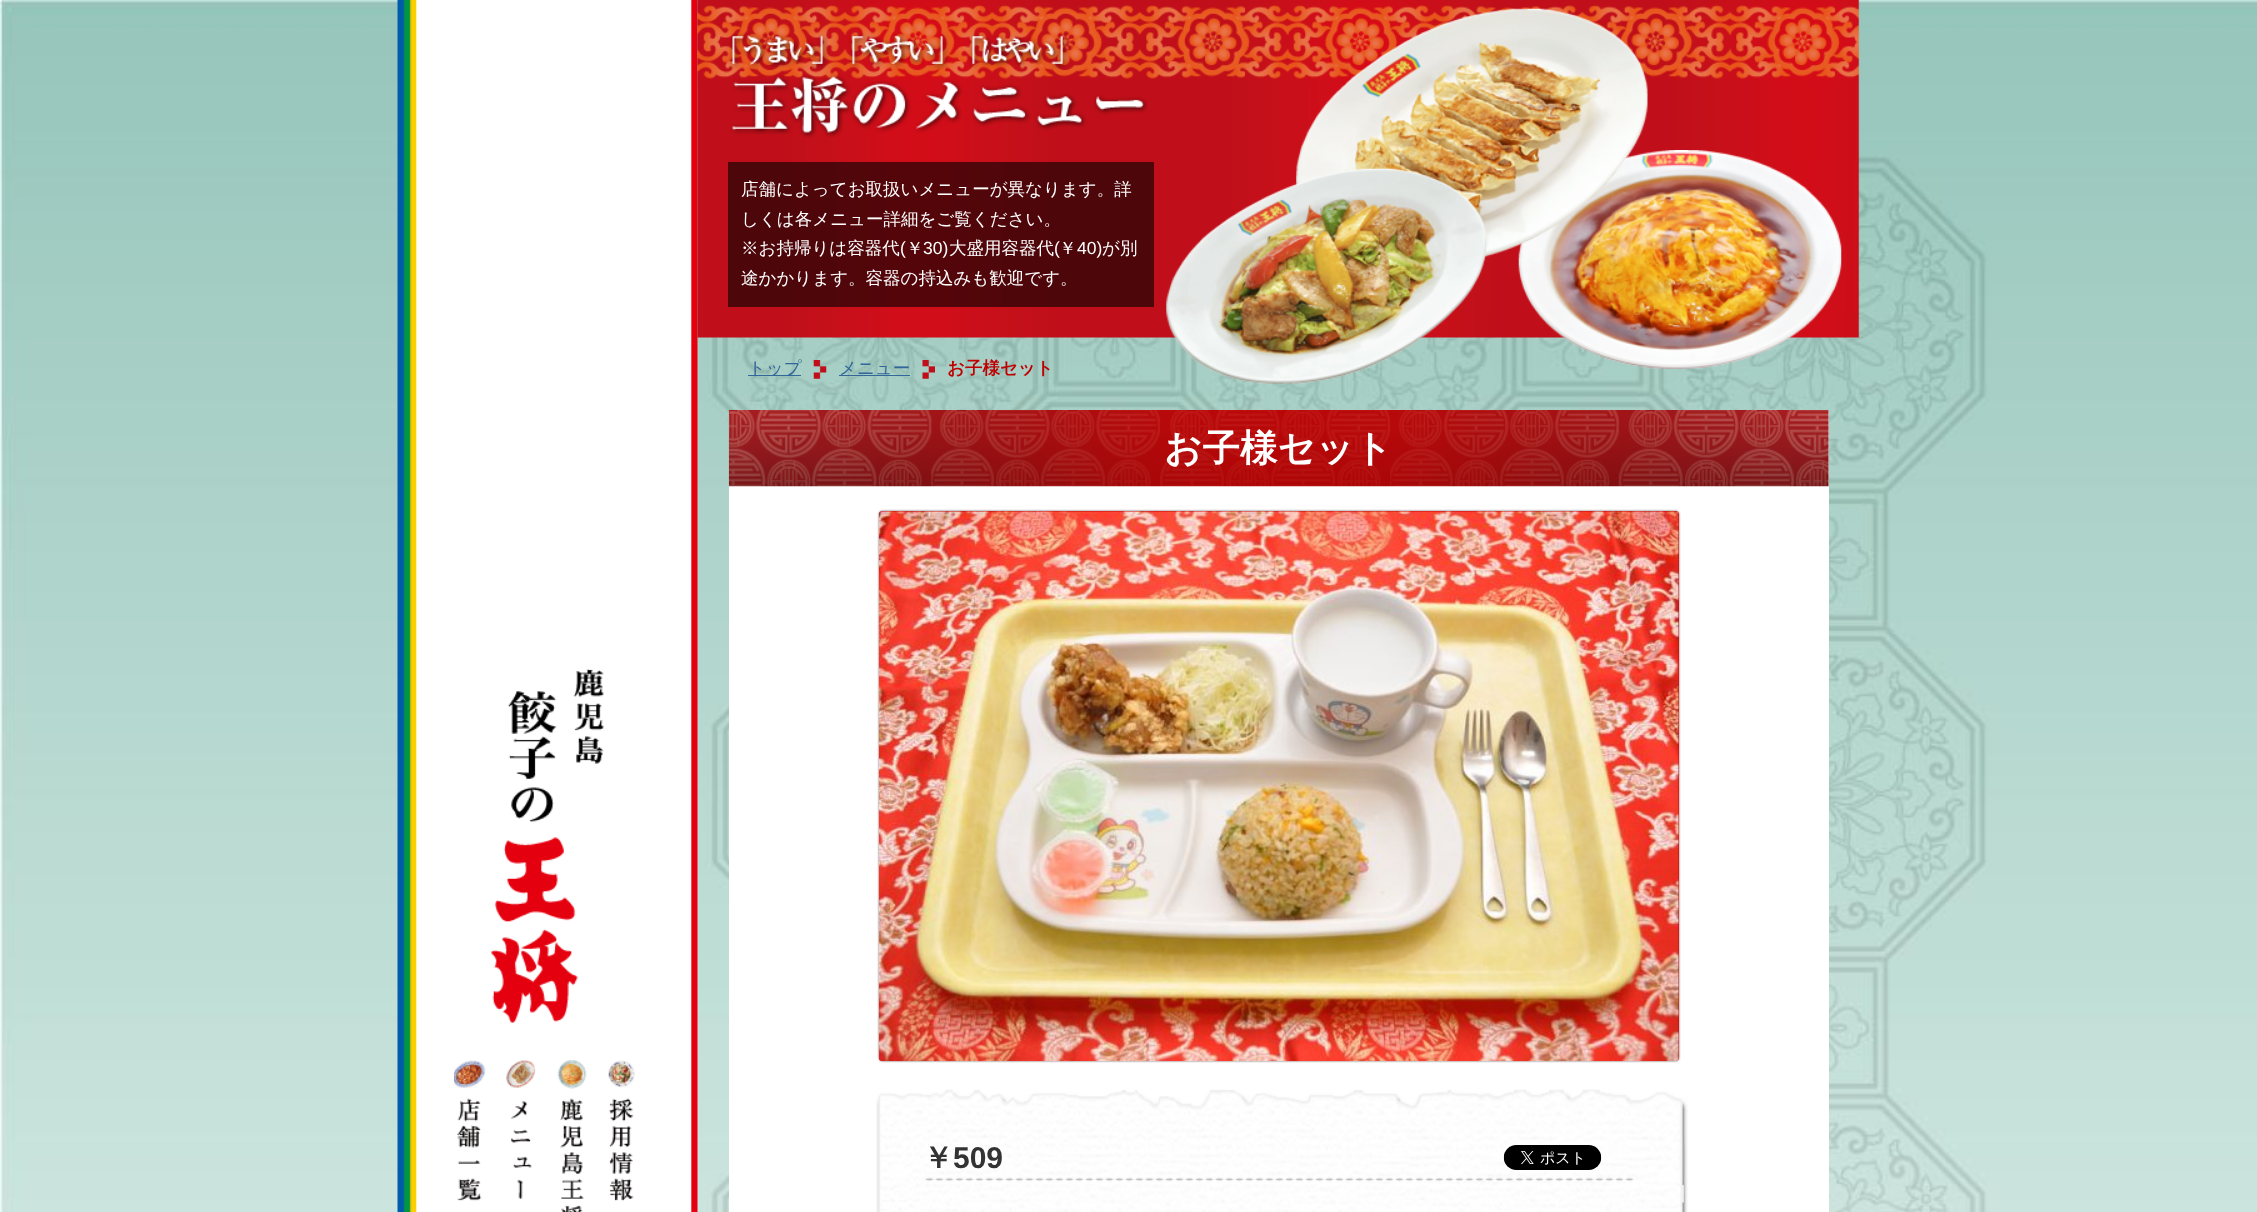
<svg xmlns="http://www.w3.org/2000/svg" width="2257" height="1212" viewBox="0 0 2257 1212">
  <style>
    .t1 { font: 500 17.5px WenQuanYi Zen Hei; fill: #fff; }
    .t2 { font: 17.5px Liberation Sans; fill: #fff; }
    .t3 { font: 500 17.5px WenQuanYi Zen Hei; fill: #369; }
    .t4 { font: bold 17.5px WenQuanYi Zen Hei; fill: #c00000; }
    .t5 { font: bold 37.5px WenQuanYi Zen Hei; fill: #fff; }
    .t6 { font: bold 30px WenQuanYi Zen Hei; fill: #333; }
    .t7 { font: bold 30px Liberation Sans; fill: #333; }
  </style>
  <rect width="100%" height="100%" fill="#fff"/>
  <image x="0" y="0" width="2257" height="1212" href="images/1.png"/>
  <image x="397" y="0" width="301" height="1212" href="images/2.png"/>
  <image x="491" y="668" width="113" height="355" href="images/3.png"/>
  <image x="453" y="1060" width="33" height="141" href="images/4.png"/>
  <image x="506" y="1060" width="30" height="139" href="images/5.png"/>
  <image x="557" y="1060" width="30" height="152" href="images/6.png"/>
  <image x="608" y="1060" width="27" height="141" href="images/7.png"/>
  <image x="697" y="0" width="1163" height="338" href="images/8.png"/>
  <image x="729" y="33" width="419" height="105" href="images/9.png"/>
  <image x="1518" y="150" width="324" height="219" href="images/11.png"/>
  <image x="1296" y="8" width="352" height="250" href="images/10.png"/>
  <image x="1166" y="168" width="321" height="216" href="images/12.png"/>
  <rect x="728" y="162" width="426" height="145" fill="#00000099"/>
  <text x="741" y="195" class="t1">店舗によってお取扱いメニューが異なります。詳</text>
  <text x="741" y="225" class="t1">しくは各メニュー詳細をご覧ください。</text>
  <text x="741" y="254" class="t1">※お持帰りは容器代</text>
  <text x="900" y="254" class="t2">(</text>
  <text x="906" y="254" class="t1">￥</text>
  <text x="923" y="254" class="t2">30)</text>
  <text x="949" y="254" class="t1">大盛用容器代</text>
  <text x="1054" y="254" class="t2">(</text>
  <text x="1059" y="254" class="t1">￥</text>
  <text x="1077" y="254" class="t2">40)</text>
  <text x="1102" y="254" class="t1">が別</text>
  <text x="741" y="284" class="t1">途かかります。容器の持込みも歓迎です。</text>
  <rect x="748" y="375" width="53" height="1" fill="#369"/>
  <text x="748" y="374" class="t3">トップ</text>
  <image x="813" y="360" width="14" height="19" href="images/13.png"/>
  <rect x="839" y="375" width="71" height="1" fill="#369"/>
  <text x="839" y="374" class="t3">メニュー</text>
  <image x="922" y="360" width="13" height="19" href="images/14.png"/>
  <text x="947" y="374" class="t4">お子様セット</text>
  <rect x="729" y="410" width="1100" height="802" fill="#fff"/>
  <image x="728" y="410" width="1101" height="77" href="images/15.png"/>
  <text x="1164" y="461" class="t5">お子様セット</text>
  <rect x="879" y="511" width="800" height="550" rx="4" fill="#666" filter="blur(1px)"/>
  <rect x="879" y="511" width="800" height="550" rx="4" fill="#c00000"/>
  <image x="878" y="511" width="801" height="551" href="images/16.png"/>
  <image x="876" y="1089" width="812" height="123" href="images/17.png"/>
  <text x="923" y="1168" class="t6">￥</text>
  <text x="953" y="1168" class="t7">509</text>
  <image x="1503" y="1145" width="99" height="25" href="images/18.png"/>
</svg>
